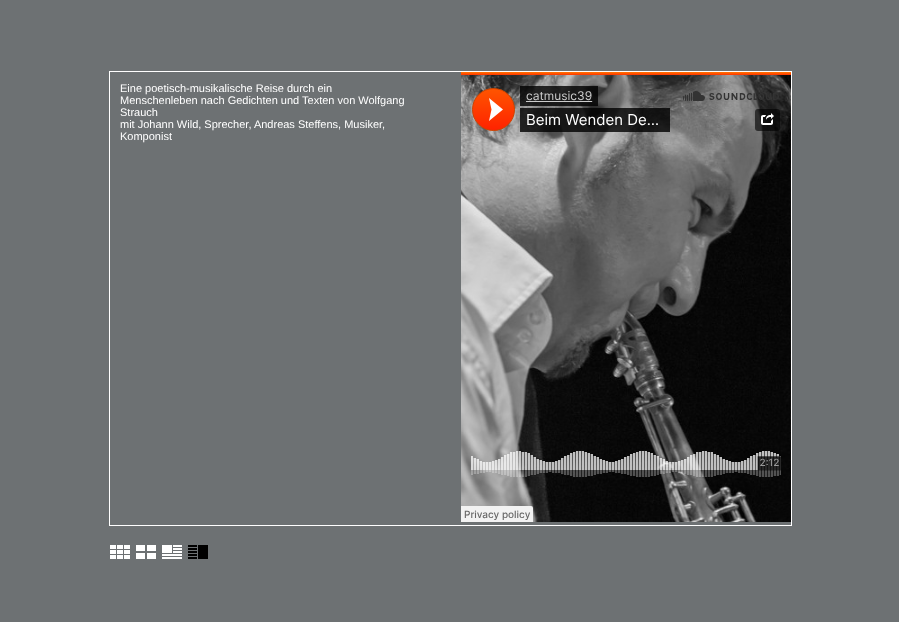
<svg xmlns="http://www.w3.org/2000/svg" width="899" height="622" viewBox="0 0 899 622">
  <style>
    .t1 { font: 11px Liberation Sans; fill: #fff; }
  </style>
  <rect width="100%" height="100%" fill="#6d7173"/>
  <rect x="109.5" y="71.5" width="682" height="454" fill="none" stroke="#fff"/>
  <text x="120" y="92" class="t1">Eine poetisch-musikalische Reise durch ein</text>
  <text x="120" y="104" class="t1">Menschenleben nach Gedichten und Texten von Wolfgang</text>
  <text x="120" y="116" class="t1">Strauch</text>
  <text x="120" y="128" class="t1">mit Johann Wild, Sprecher, Andreas Steffens, Musiker,</text>
  <text x="120" y="140" class="t1">Komponist</text>
  <image x="461" y="72" width="330" height="450" href="images/1.png"/>
  <image x="110" y="545" width="20" height="14" href="images/2.png"/>
  <image x="136" y="545" width="20" height="14" href="images/3.png"/>
  <image x="162" y="545" width="20" height="14" href="images/4.png"/>
  <image x="188" y="545" width="20" height="14" href="images/5.png"/>
</svg>
